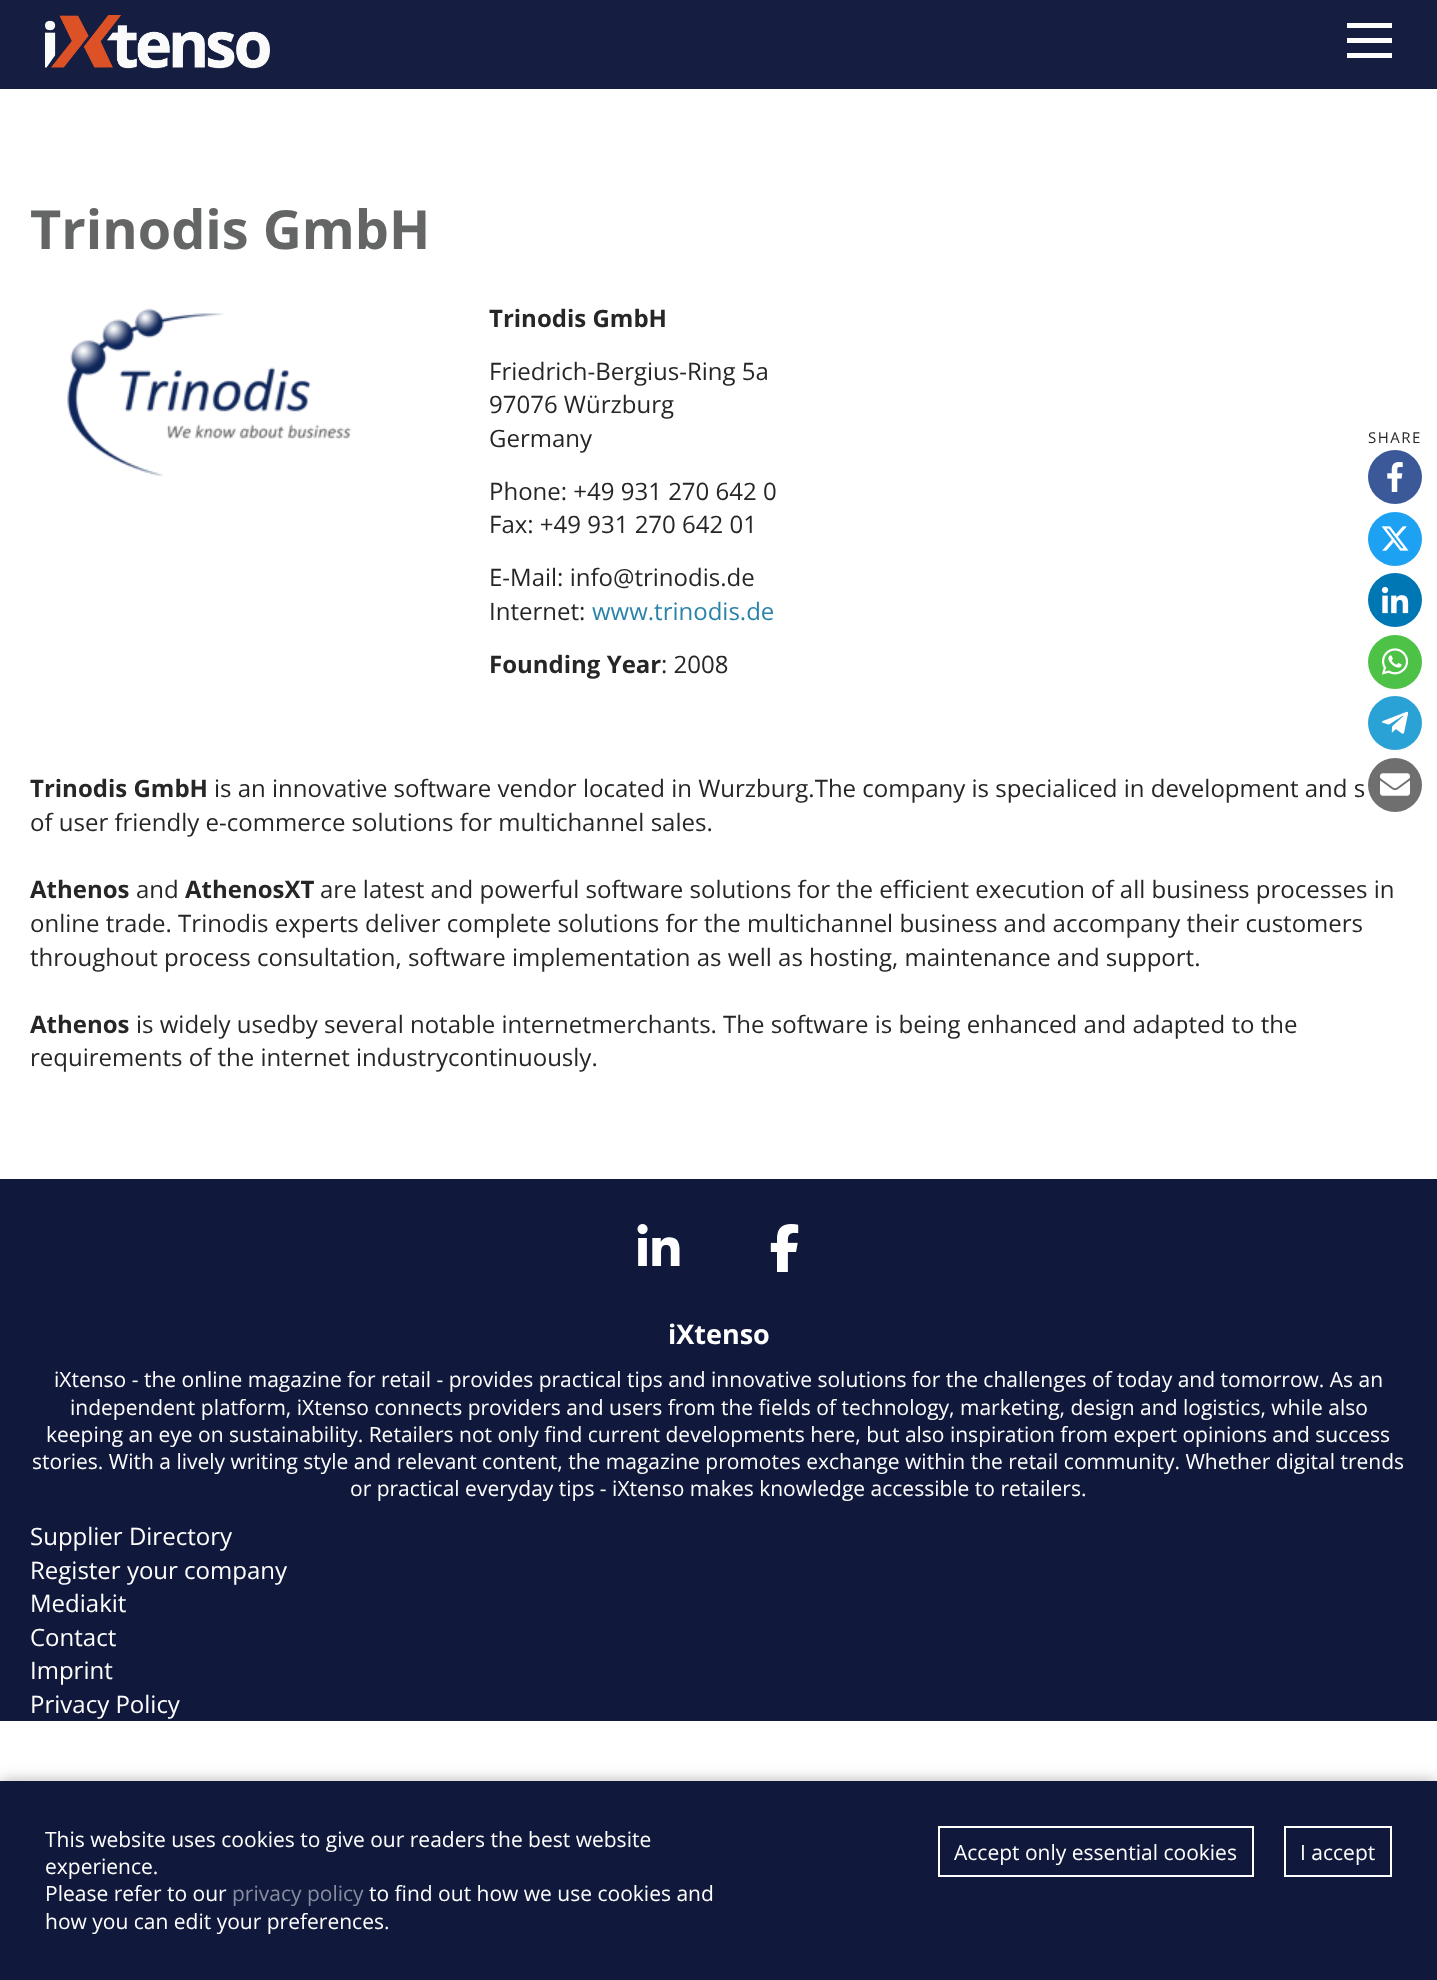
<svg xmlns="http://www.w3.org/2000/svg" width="1437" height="1980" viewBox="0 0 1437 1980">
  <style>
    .t1 { font: bold 54px Open Sans; fill: #646565; }
    .t2 { font: bold 24px Open Sans; fill: #262626; }
    .t3 { font: 24px Open Sans; fill: #262626; }
    .t4 { font: 24px Open Sans; fill: #2b83aa; }
    .t5 { font: 15px Open Sans; letter-spacing: 1.5px; fill: #262626; }
    .t6 { font: bold 27px Open Sans; fill: #fff; }
    .t7 { font: 21px Open Sans; fill: #fff; }
    .t8 { font: 24px Open Sans; fill: #fff; }
    .t9 { font: 21px Open Sans; fill: #888c9e; }
  </style>
  <rect width="100%" height="100%" fill="#fff"/>
  <rect x="0" y="0" width="1437" height="89" fill="#151e40"/>
  <image x="45" y="15" width="225" height="54" href="images/1.png"/>
  <rect x="1347" y="23" width="45" height="5" fill="#fff"/>
  <rect x="1347" y="38" width="45" height="5" fill="#fff"/>
  <rect x="1347" y="53" width="45" height="5" fill="#fff"/>
  <text x="30" y="249" class="t1">Trinodis GmbH</text>
  <image x="67" y="308" width="285" height="169" href="images/2.png"/>
  <text x="489" y="327" class="t2">Trinodis GmbH</text>
  <text x="489" y="380" class="t3">Friedrich-Bergius-Ring 5a</text>
  <text x="489" y="413" class="t3">97076 Würzburg</text>
  <text x="489" y="447" class="t3">Germany</text>
  <text x="489" y="500" class="t3">Phone: +49 931 270 642 0</text>
  <text x="489" y="533" class="t3">Fax: +49 931 270 642 01</text>
  <text x="489" y="586" class="t3">E-Mail: info@trinodis.de</text>
  <text x="489" y="620" class="t3">Internet:</text>
  <text x="592" y="620" class="t4">www.trinodis.de</text>
  <text x="489" y="673" class="t2">Founding Year</text>
  <text x="661" y="673" class="t3">: 2008</text>
  <text x="30" y="797" class="t2">Trinodis GmbH</text>
  <text x="214" y="797" class="t3">is an innovative software vendor located in Wurzburg.The company is specialiced in development and s</text>
  <text x="30" y="831" class="t3">of user friendly e-commerce solutions for multichannel sales.</text>
  <text x="30" y="898" class="t2">Athenos</text>
  <text x="136" y="898" class="t3">and</text>
  <text x="185" y="898" class="t2">AthenosXT</text>
  <text x="320" y="898" class="t3">are latest and powerful software solutions for the efficient execution of all business processes in</text>
  <text x="30" y="932" class="t3">online trade. Trinodis experts deliver complete solutions for the multichannel business and accompany their customers</text>
  <text x="30" y="966" class="t3">throughout process consultation, software implementation as well as hosting, maintenance and support.</text>
  <text x="30" y="1033" class="t2">Athenos</text>
  <text x="136" y="1033" class="t3">is widely usedby several notable internetmerchants. The software is being enhanced and adapted to the</text>
  <text x="30" y="1066" class="t3">requirements of the internet industrycontinuously.</text>
  <text x="1368" y="443" class="t5">SHARE</text>
  <circle cx="1395" cy="477" r="27" fill="#3b5998"/>
  <image x="1387" y="462" width="16" height="30" href="images/3.png"/>
  <circle cx="1395" cy="539" r="27" fill="#1da1f2"/>
  <image x="1381" y="526" width="28" height="25" href="images/4.png"/>
  <circle cx="1395" cy="600" r="27" fill="#0077b5"/>
  <image x="1381" y="586" width="28" height="28" href="images/5.png"/>
  <circle cx="1395" cy="662" r="27" fill="#4dc247"/>
  <image x="1381" y="648" width="28" height="27" href="images/6.png"/>
  <circle cx="1395" cy="723" r="27" fill="#2ba2d5"/>
  <image x="1381" y="711" width="28" height="23" href="images/7.png"/>
  <circle cx="1395" cy="785" r="27" fill="#6f6f6f"/>
  <image x="1380" y="773" width="30" height="23" href="images/8.png"/>
  <rect x="0" y="1179" width="1437" height="542" fill="#10193c"/>
  <image x="637" y="1224" width="43" height="42" href="images/9.png"/>
  <image x="770" y="1224" width="29" height="48" href="images/10.png"/>
  <text x="668" y="1344" class="t6">iXtenso</text>
  <text x="54" y="1387" class="t7">iXtenso - the online magazine for retail - provides practical tips and innovative solutions for the challenges of today and tomorrow. As an</text>
  <text x="70" y="1415" class="t7">independent platform, iXtenso connects providers and users from the fields of technology, marketing, design and logistics, while also</text>
  <text x="46" y="1442" class="t7">keeping an eye on sustainability. Retailers not only find current developments here, but also inspiration from expert opinions and success</text>
  <text x="32" y="1469" class="t7">stories. With a lively writing style and relevant content, the magazine promotes exchange within the retail community. Whether digital trends</text>
  <text x="350" y="1496" class="t7">or practical everyday tips - iXtenso makes knowledge accessible to retailers.</text>
  <text x="30" y="1545" class="t8">Supplier Directory</text>
  <text x="30" y="1579" class="t8">Register your company</text>
  <text x="30" y="1612" class="t8">Mediakit</text>
  <text x="30" y="1646" class="t8">Contact</text>
  <text x="30" y="1679" class="t8">Imprint</text>
  <text x="30" y="1713" class="t8">Privacy Policy</text>
  <rect x="0" y="1781" width="1437" height="199" fill="#0000004d" filter="blur(7.5px)"/>
  <rect x="0" y="1781" width="1437" height="199" fill="#10193c"/>
  <text x="45" y="1847" class="t7">This website uses cookies to give our readers the best website</text>
  <text x="45" y="1874" class="t7">experience.</text>
  <text x="45" y="1901" class="t7">Please refer to our</text>
  <text x="232" y="1901" class="t9">privacy policy</text>
  <text x="369" y="1901" class="t7">to find out how we use cookies and</text>
  <text x="45" y="1929" class="t7">how you can edit your preferences.</text>
  <rect x="939" y="1827" width="314" height="49" fill="none" stroke="#fff" stroke-width="2"/>
  <text x="954" y="1860" class="t7">Accept only essential cookies</text>
  <rect x="1285" y="1827" width="106" height="49" fill="none" stroke="#fff" stroke-width="2"/>
  <text x="1300" y="1860" class="t7">I accept</text>
</svg>
